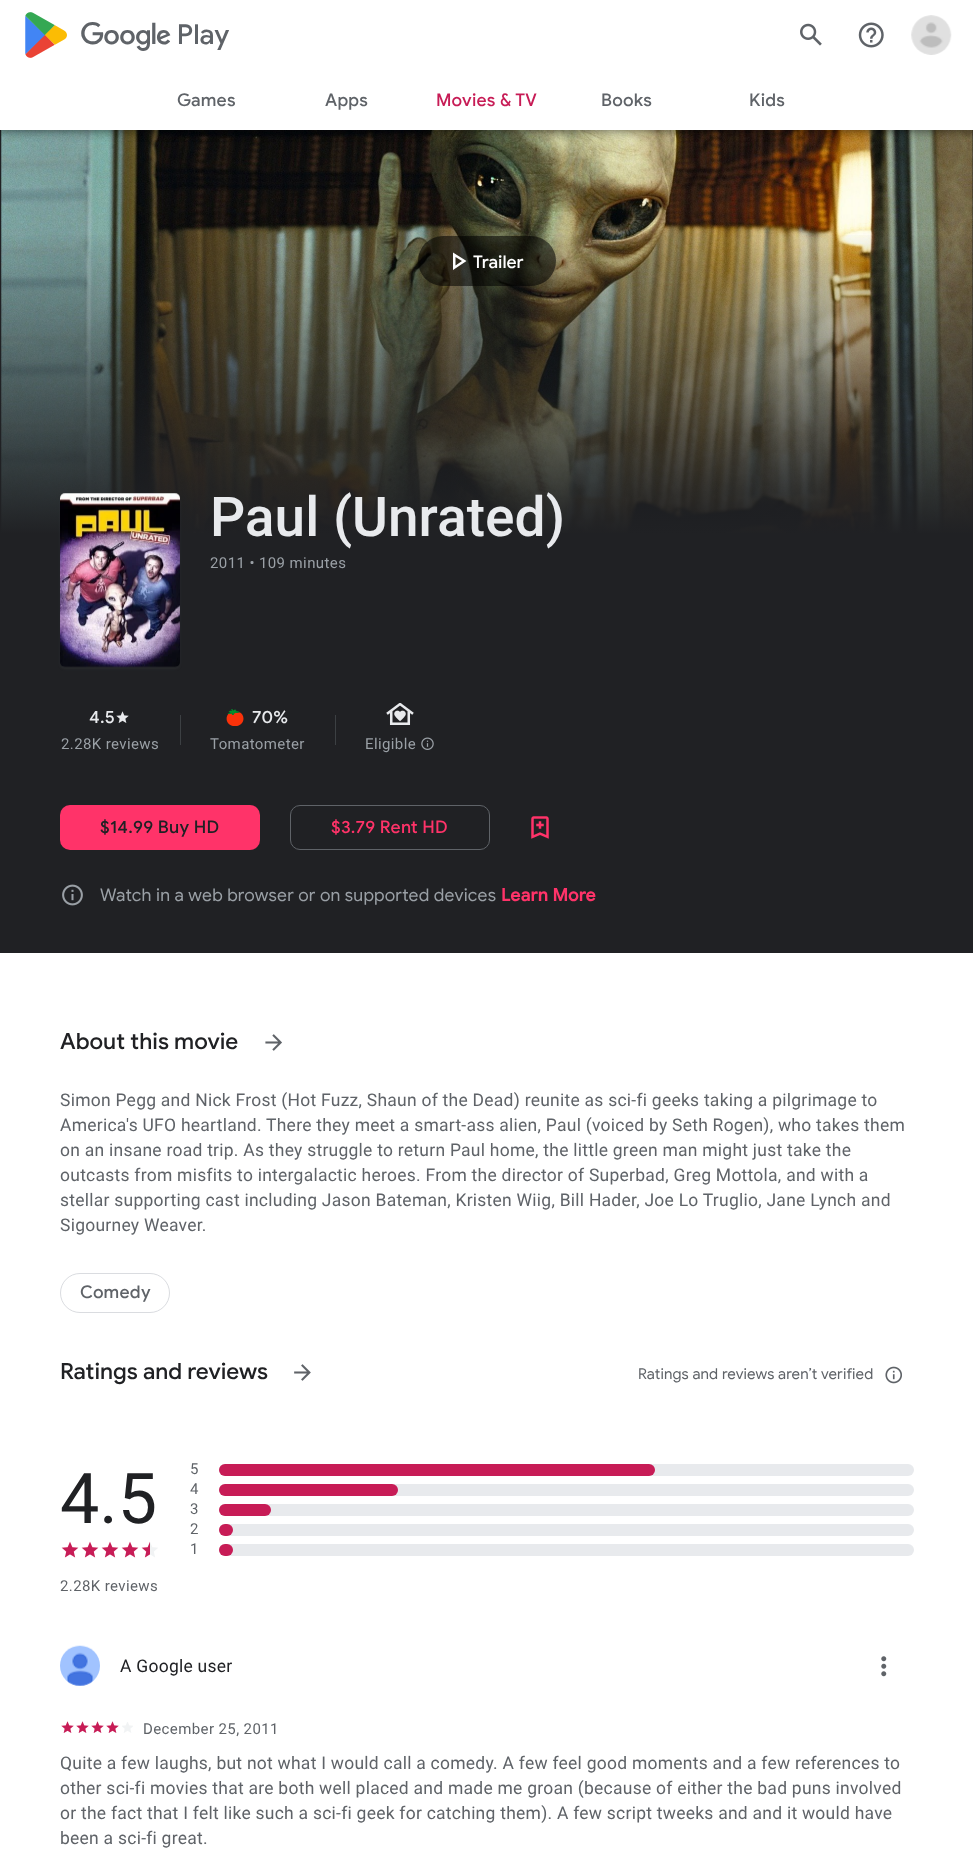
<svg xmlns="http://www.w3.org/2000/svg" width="973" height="1865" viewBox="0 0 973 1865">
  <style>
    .t1 { font: 500 27.5px Google Sans; fill: #5f6368; }
    .t2 { font: 500 17.5px Google Sans; letter-spacing: 0.25px; fill: #5f6368; }
    .t3 { font: 500 17.5px Google Sans; letter-spacing: 0.25px; fill: #c71c56; }
    .t4 { font: 500 17.5px Google Sans; fill: #fff; }
    .t5 { font: 500 55px Roboto; fill: #e8eaed; }
    .t6 { font: 15px Roboto; letter-spacing: 0.4px; fill: #9aa0a6; }
    .t7 { font: 500 17.5px Google Sans; letter-spacing: 0.25px; fill: #e8eaed; }
    .t8 { font: 500 17.5px Google Sans; letter-spacing: 0.25px; fill: #202124; }
    .t9 { font: 500 17.5px Google Sans; letter-spacing: 0.25px; fill: #ff3369; }
    .t10 { font: 17.5px Google Sans; letter-spacing: 0.25px; fill: #9aa0a6; }
    .t11 { font: bold 17.5px Google Sans; letter-spacing: 0.25px; fill: #ff3369; }
    .t12 { font: 500 22.5px Google Sans; fill: #202124; }
    .t13 { font: 17.5px Roboto; letter-spacing: 0.25px; fill: #5f6368; }
    .t14 { font: 15px Google Sans; letter-spacing: 0.15px; fill: #5f6368; }
    .t15 { font: 70px Roboto; fill: #202124; }
    .t16 { font: 15px Roboto; letter-spacing: 0.4px; fill: #5f6368; }
    .t17 { font: 17.5px Roboto; letter-spacing: 0.25px; fill: #202124; }
  </style>
  <defs>
    <linearGradient id="g1" gradientUnits="userSpaceOnUse" x1="487" y1="535" x2="487" y2="-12"><stop offset="0" stop-color="#202124"/><stop offset="0.56" stop-color="#202124" stop-opacity="0"/></linearGradient>
  </defs>
  <rect width="100%" height="100%" fill="#fff"/>
  <rect x="0" y="130" width="973" height="823" fill="#202124"/>
  <image x="1" y="130" width="972" height="403" href="images/5.png"/>
  <rect x="1" y="4" width="972" height="127" fill="#00000033" filter="blur(2.5px)"/>
  <rect x="0" y="1" width="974" height="130" fill="#0000001f" filter="blur(6px)"/>
  <rect x="0" y="5" width="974" height="130" fill="#00000024" filter="blur(3px)"/>
  <rect x="0" y="0" width="973" height="130" fill="#fff"/>
  <image x="25" y="12" width="42" height="46" href="images/1.png"/>
  <text x="80" y="44" class="t1">google_logo Play</text>
  <image x="800" y="23" width="22" height="23" href="images/2.png"/>
  <image x="858" y="22" width="26" height="26" href="images/3.png"/>
  <image x="911" y="15" width="41" height="40" href="images/4.png"/>
  <text x="177" y="106" class="t2">Games</text>
  <text x="325" y="106" class="t2">Apps</text>
  <text x="436" y="106" class="t3">Movies &amp; TV</text>
  <text x="601" y="106" class="t2">Books</text>
  <text x="749" y="106" class="t2">Kids</text>
  <rect x="1" y="235" width="972" height="298" fill="url(#g1)"/>
  <rect x="418" y="236" width="138" height="50" rx="25" fill="#0000008a"/>
  <path d="M455.5 257L462 261L455.5 265.5ZM453 252.5V270L466.5 261Z" fill="#fff"/>
  <text x="473" y="268" class="t4">Trailer</text>
  <rect x="60" y="495" width="120" height="174" rx="5" fill="#3c40434d" filter="blur(1px)"/>
  <image x="60" y="493" width="120" height="175" href="images/6.png"/>
  <text x="210" y="536" class="t5">Paul (Unrated)</text>
  <text x="210" y="568" class="t6">2011 • 109 minutes</text>
  <text x="89" y="723" class="t7">4.5</text>
  <image x="116" y="711" width="13" height="12" href="images/7.png"/>
  <text x="61" y="749" class="t6">2.28K reviews</text>
  <rect x="180" y="715" width="1" height="30" fill="#3c4043"/>
  <image x="226" y="709" width="18" height="17" href="images/8.png"/>
  <text x="252" y="723" class="t7">70%</text>
  <text x="210" y="749" class="t6">Tomatometer</text>
  <rect x="335" y="715" width="1" height="30" fill="#3c4043"/>
  <image x="386" y="703" width="28" height="22" href="images/9.png"/>
  <text x="365" y="749" class="t6">Eligible</text>
  <image x="421" y="737" width="13" height="13" href="images/10.png"/>
  <rect x="60" y="805" width="200" height="45" rx="10" fill="#ff3369"/>
  <text x="100" y="833" class="t8">$14.99 Buy HD</text>
  <rect x="290.5" y="805.5" width="199" height="44" rx="9.5" fill="none" stroke="#5f6368"/>
  <text x="331" y="833" class="t9">$3.79 Rent HD</text>
  <image x="531" y="816" width="18" height="23" href="images/11.png"/>
  <image x="62" y="884" width="21" height="22" href="images/12.png"/>
  <text x="100" y="901" class="t10">Watch in a web browser or on supported devices</text>
  <text x="501" y="901" class="t11">Learn More</text>
  <text x="60" y="1049" class="t12">About this movie</text>
  <image x="265" y="1034" width="17" height="17" href="images/13.png"/>
  <text x="60" y="1106" class="t13">Simon Pegg and Nick Frost (Hot Fuzz, Shaun of the Dead) reunite as sci-fi geeks taking a pilgrimage to</text>
  <text x="60" y="1131" class="t13">America's UFO heartland. There they meet a smart-ass alien, Paul (voiced by Seth Rogen), who takes them</text>
  <text x="60" y="1156" class="t13">on an insane road trip. As they struggle to return Paul home, the little green man might just take the</text>
  <text x="60" y="1181" class="t13">outcasts from misfits to intergalactic heroes. From the director of Superbad, Greg Mottola, and with a</text>
  <text x="60" y="1206" class="t13">stellar supporting cast including Jason Bateman, Kristen Wiig, Bill Hader, Joe Lo Truglio, Jane Lynch and</text>
  <text x="60" y="1231" class="t13">Sigourney Weaver.</text>
  <rect x="60.5" y="1273.5" width="109" height="39" rx="19.5" fill="none" stroke="#dadce0"/>
  <text x="80" y="1298" class="t2">Comedy</text>
  <text x="60" y="1379" class="t12">Ratings and reviews</text>
  <image x="294" y="1364" width="17" height="17" href="images/14.png"/>
  <text x="638" y="1379" class="t14">Ratings and reviews aren’t verified</text>
  <image x="885" y="1366" width="17" height="18" href="images/15.png"/>
  <text x="60" y="1523" class="t15">4.5</text>
  <image x="61" y="1541" width="18" height="17" href="images/16.png"/>
  <image x="81" y="1541" width="18" height="17" href="images/16.png"/>
  <image x="101" y="1541" width="18" height="17" href="images/16.png"/>
  <image x="121" y="1541" width="18" height="17" href="images/16.png"/>
  <image x="141" y="1541" width="17" height="17" href="images/17.png"/>
  <text x="60" y="1591" class="t16">2.28K reviews</text>
  <text x="190" y="1474" class="t16">5</text>
  <rect x="219" y="1464" width="695" height="12" rx="6" fill="#e8eaed"/>
  <rect x="219" y="1464" width="436" height="12" rx="6" fill="#c71c56"/>
  <text x="190" y="1494" class="t16">4</text>
  <rect x="219" y="1484" width="695" height="12" rx="6" fill="#e8eaed"/>
  <rect x="219" y="1484" width="179" height="12" rx="6" fill="#c71c56"/>
  <text x="190" y="1514" class="t16">3</text>
  <rect x="219" y="1504" width="695" height="12" rx="6" fill="#e8eaed"/>
  <rect x="219" y="1504" width="52" height="12" rx="6" fill="#c71c56"/>
  <text x="190" y="1534" class="t16">2</text>
  <rect x="219" y="1524" width="695" height="12" rx="6" fill="#e8eaed"/>
  <rect x="219" y="1524" width="14" height="12" rx="6" fill="#c71c56"/>
  <text x="190" y="1554" class="t16">1</text>
  <rect x="219" y="1544" width="695" height="12" rx="6" fill="#e8eaed"/>
  <rect x="219" y="1544" width="14" height="12" rx="6" fill="#c71c56"/>
  <image x="60" y="1645" width="40" height="41" href="images/18.png"/>
  <text x="120" y="1672" class="t17">A Google user</text>
  <image x="881" y="1656" width="6" height="21" href="images/19.png"/>
  <image x="61" y="1721" width="13" height="12" href="images/20.png"/>
  <image x="76" y="1721" width="13" height="12" href="images/20.png"/>
  <image x="91" y="1721" width="13" height="12" href="images/20.png"/>
  <image x="106" y="1721" width="13" height="12" href="images/20.png"/>
  <image x="122" y="1722" width="11" height="11" href="images/21.png"/>
  <text x="143" y="1734" class="t16">December 25, 2011</text>
  <text x="60" y="1769" class="t13">Quite a few laughs, but not what I would call a comedy. A few feel good moments and a few references to</text>
  <text x="60" y="1794" class="t13">other sci-fi movies that are both well placed and made me groan (because of either the bad puns involved</text>
  <text x="60" y="1819" class="t13">or the fact that I felt like such a sci-fi geek for catching them). A few script tweeks and and it would have</text>
  <text x="60" y="1844" class="t13">been a sci-fi great.</text>
</svg>
